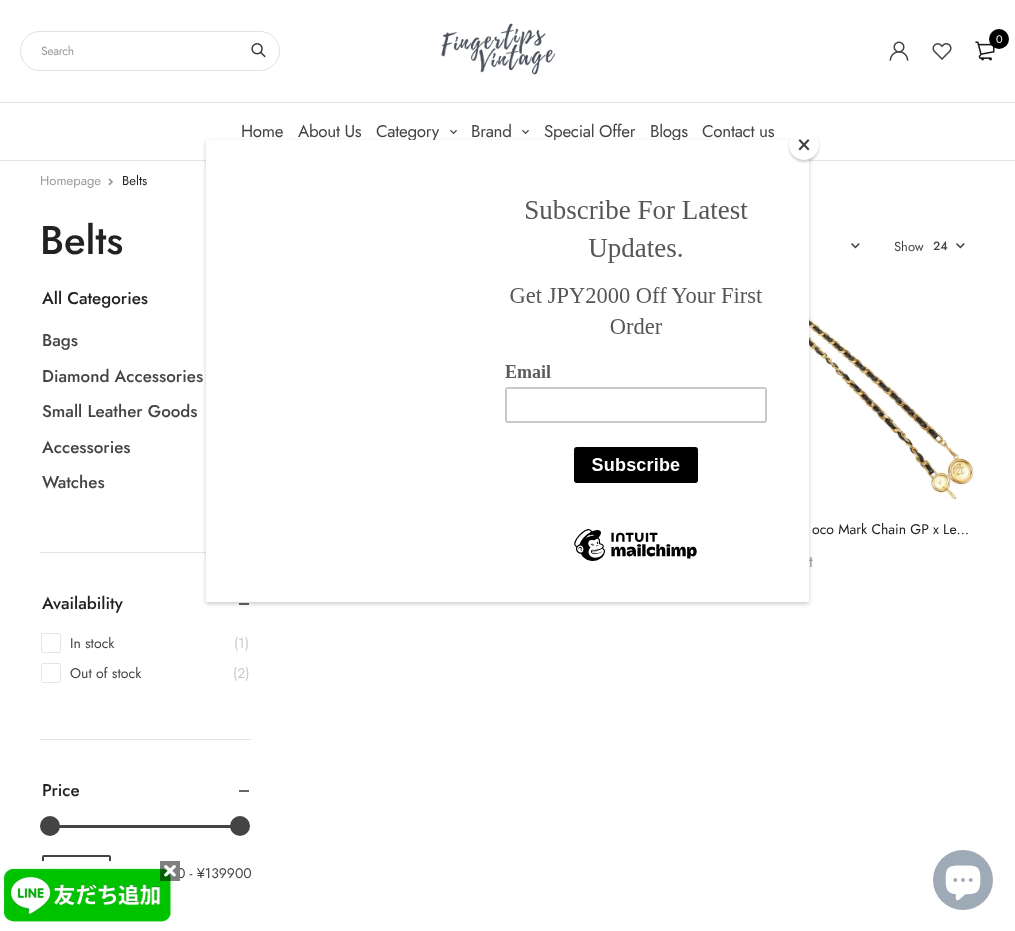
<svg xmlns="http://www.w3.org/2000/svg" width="1015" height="931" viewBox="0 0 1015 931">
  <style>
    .t1 { font: 11px Jost; letter-spacing: -0.3px; fill: #fff; }
    .t2 { font: 12px Jost; letter-spacing: -0.3px; fill: #999; }
    .t3 { font: 17px Jost; letter-spacing: -0.3px; fill: #444; }
    .t4 { font: 13px Jost; fill: #999; }
    .t5 { font: 13px Jost; fill: #222; }
    .t6 { font: 500 40px Jost; fill: #222; }
    .t7 { font: 500 17px Jost; fill: #222; }
    .t8 { font: 500 17px Jost; fill: #444; }
    .t9 { font: 14px Jost; fill: #444; }
    .t10 { font: 14px Jost; fill: #ccc; }
    .t11 { font: 13px Jost; fill: #444; }
    .t12 { font: 500 12px Jost; fill: #444; }
    .t13 { font: 14px Jost; fill: #222; }
    .t14 { font: 16px Jost; fill: #999; }
  </style>
  <defs>
    <clipPath id="clip1"><path d="M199 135H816V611H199ZM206 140H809V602H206Z" clip-rule="evenodd"/></clipPath>
  </defs>
  <rect width="100%" height="100%" fill="#fff"/>
  <rect x="0" y="160" width="1015" height="1" fill="#e5e5e5"/>
  <image x="441" y="23" width="115" height="52" href="images/1.png"/>
  <image x="975" y="41" width="20" height="20" href="images/2.png"/>
  <circle cx="999" cy="39" r="10" fill="#000"/>
  <text x="996" y="43" class="t1">0</text>
  <image x="889" y="41" width="20" height="20" href="images/3.png"/>
  <image x="932" y="43" width="20" height="17" href="images/4.png"/>
  <rect x="20.5" y="31.5" width="259" height="39" rx="19.5" fill="none" stroke="#e1e1e1"/>
  <text x="41" y="55" class="t2">Search</text>
  <image x="251" y="43" width="15" height="15" href="images/5.png"/>
  <rect x="0" y="102" width="1015" height="1" fill="#e1e1e1"/>
  <text x="241" y="137" class="t3">Home</text>
  <text x="298" y="137" class="t3">About Us</text>
  <text x="376" y="137" class="t3">Category</text>
  <image x="450" y="130" width="7" height="4" href="images/6.png"/>
  <text x="471" y="137" class="t3">Brand</text>
  <image x="522" y="130" width="7" height="4" href="images/6.png"/>
  <text x="544" y="137" class="t3">Special Offer</text>
  <text x="650" y="137" class="t3">Blogs</text>
  <text x="702" y="137" class="t3">Contact us</text>
  <text x="40" y="185" class="t4">Homepage</text>
  <image x="108" y="178" width="5" height="8" href="images/7.png"/>
  <text x="122" y="185" class="t5">Belts</text>
  <text x="40" y="254" class="t6">Belts</text>
  <rect x="40" y="552" width="166" height="1" fill="#e5e5e5"/>
  <text x="42" y="304" class="t7">All Categories</text>
  <text x="42" y="346" class="t8">Bags</text>
  <text x="42" y="382" class="t8">Diamond Accessories</text>
  <text x="42" y="417" class="t8">Small Leather Goods</text>
  <text x="42" y="453" class="t8">Accessories</text>
  <text x="42" y="488" class="t8">Watches</text>
  <rect x="40" y="739" width="211" height="1" fill="#e5e5e5"/>
  <text x="42" y="609" class="t7">Availability</text>
  <rect x="239" y="603" width="10" height="2" fill="#666"/>
  <rect x="41.5" y="633.5" width="19" height="19" rx="1.5" fill="none" stroke="#e5e5e5"/>
  <text x="70" y="648" class="t9">In stock</text>
  <text x="234" y="648" class="t10">(1)</text>
  <rect x="41.5" y="663.5" width="19" height="19" rx="1.5" fill="none" stroke="#e5e5e5"/>
  <text x="70" y="678" class="t9">Out of stock</text>
  <text x="233" y="678" class="t10">(2)</text>
  <text x="42" y="796" class="t7">Price</text>
  <rect x="239" y="790" width="10" height="2" fill="#666"/>
  <rect x="54" y="825" width="177" height="3" fill="#444"/>
  <circle cx="50" cy="826" r="10" fill="#444"/>
  <circle cx="240" cy="826" r="10" fill="#444"/>
  <rect x="43" y="856" width="67" height="33" rx="1" fill="none" stroke="#444" stroke-width="2"/>
  <text x="177" y="878" class="t9">0 - ¥139900</text>
  <image x="851" y="243" width="9" height="6" href="images/8.png"/>
  <text x="894" y="251" class="t11">Show</text>
  <text x="933" y="250" class="t12">24</text>
  <image x="956" y="243" width="9" height="6" href="images/8.png"/>
  <image x="809" y="289" width="165" height="211" href="images/9.png"/>
  <text x="812" y="534" class="t13">oco Mark Chain GP x Le…</text>
  <text x="809" y="567" class="t14">t</text>
  <g clip-path="url(#clip1)">
    <rect x="206" y="142" width="603" height="462" fill="#00000033" filter="blur(2px)"/>
  </g>
  <image x="206" y="140" width="603" height="430" href="images/10.png"/>
  <rect x="789" y="132" width="30" height="30" rx="15" fill="#00000033" filter="blur(1px)"/>
  <circle cx="804" cy="145" r="15" fill="#fff"/>
  <path d="M808 139L809.5 140.5L800 150.5L798.5 149Z" fill="#414141"/>
  <path d="M798.5 140.5L800 139L809.5 149L808 150.5Z" fill="#414141"/>
  <image x="3" y="861" width="177" height="61" href="images/11.png"/>
  <rect x="160" y="861" width="20" height="20" fill="#00000080"/>
  <path d="M175.5 865.5C176 866 176 867 175.5 867.5L167 876C166 876.5 165.5 876.5 164.5 876C164 875.5 164 874.5 164.5 874L173 865.5C174 865 174.5 865 175.5 865.5Z" fill="#fff"/>
  <path d="M164.5 865.5C165.5 865 166 865 167 865.5L175.5 874C176 874.5 176 875.5 175.5 876C174.5 876.5 174 876.5 173 876L164.5 867.5C164 867 164 866 164.5 865.5Z" fill="#fff"/>
  <circle cx="963" cy="880" r="30" fill="#9faab7"/>
  <image x="945" y="865" width="36" height="36" href="images/12.png"/>
</svg>
